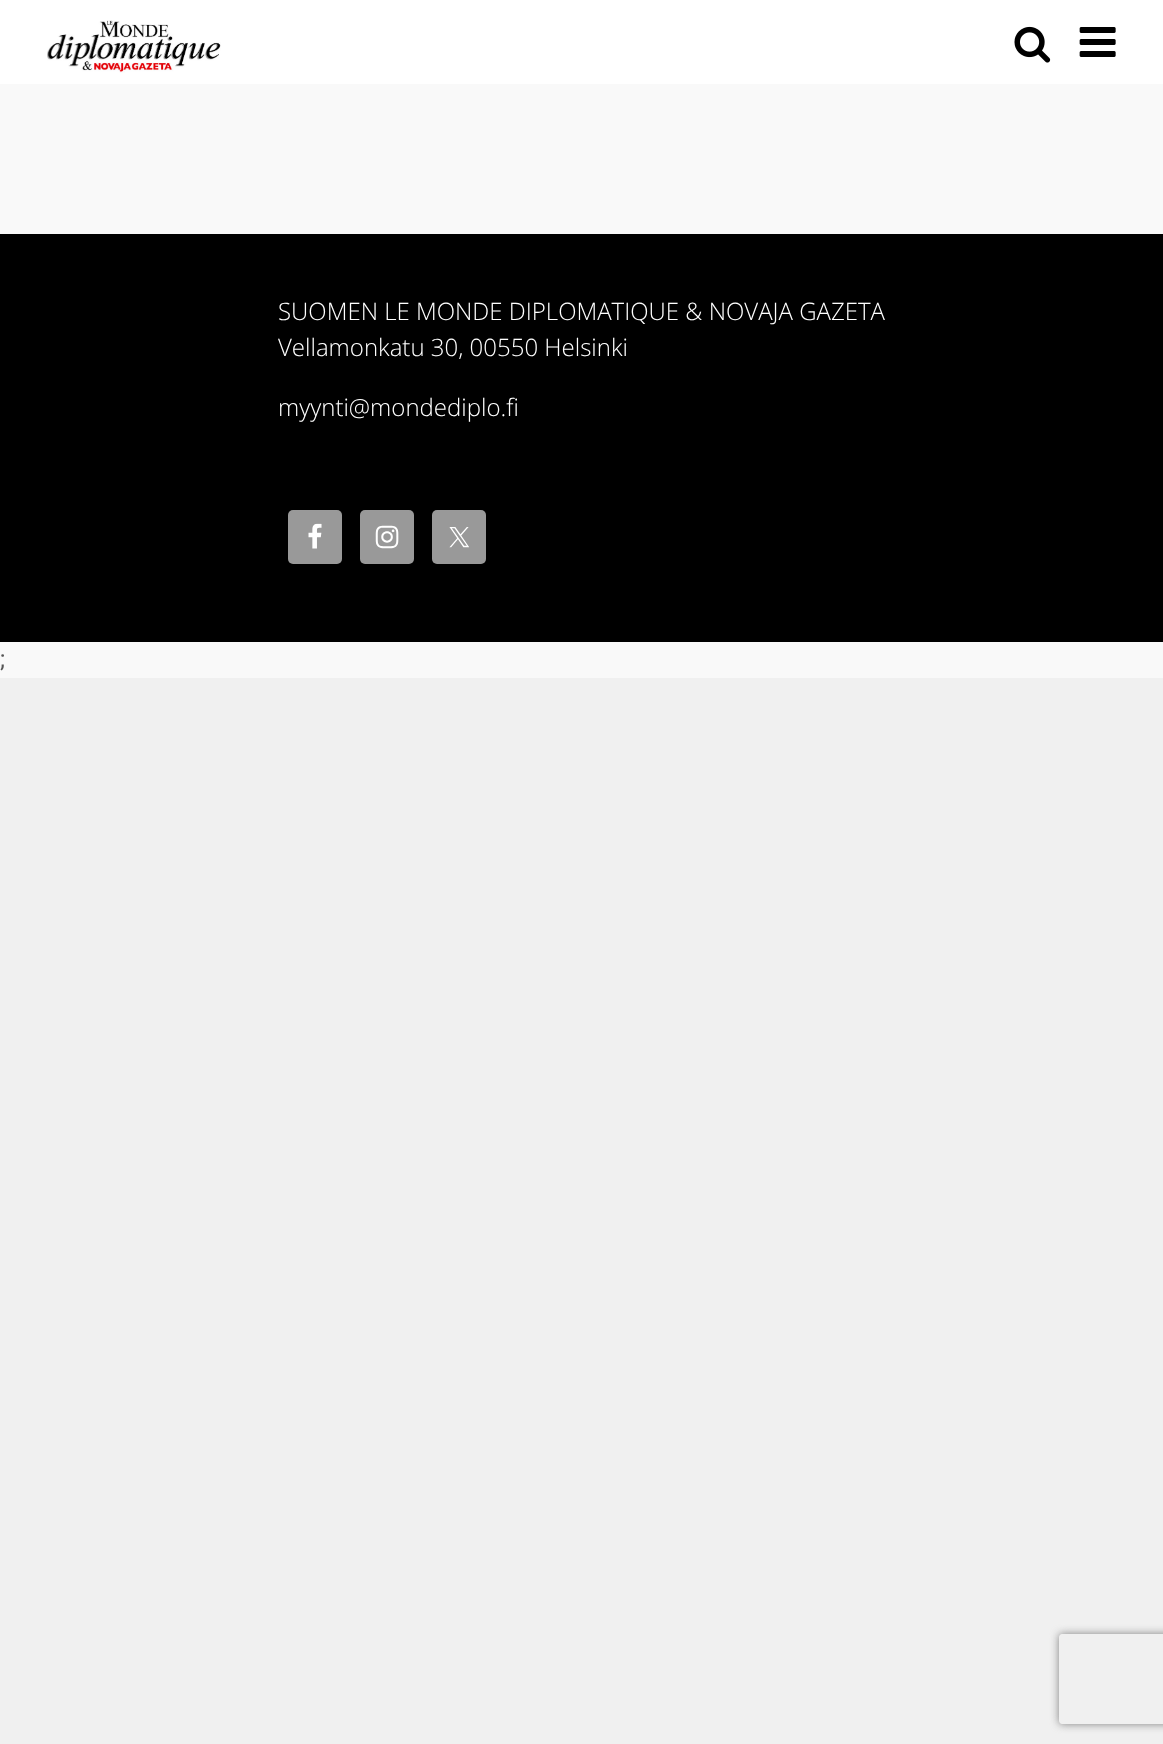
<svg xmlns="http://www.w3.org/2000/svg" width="1163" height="1744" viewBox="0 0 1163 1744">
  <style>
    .t1 { font: 300 24px Open Sans; fill: #fff; }
    .t2 { font: 24px Roboto; fill: #555; }
  </style>
  <defs>
    <clipPath id="clip1"><path d="M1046 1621H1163V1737H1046ZM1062 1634H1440C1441.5 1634 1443 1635.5 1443 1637V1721C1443 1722.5 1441.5 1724 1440 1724H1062C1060.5 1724 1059 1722.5 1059 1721V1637C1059 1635.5 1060.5 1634 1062 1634Z" clip-rule="evenodd"/></clipPath>
  </defs>
  <rect width="100%" height="100%" fill="#f0f0f0"/>
  <rect x="0" y="84" width="1163" height="594" fill="#f9f9f9"/>
  <rect x="0" y="0" width="1163" height="84" fill="#fff"/>
  <image x="47" y="20" width="174" height="53" href="images/1.png"/>
  <image x="1014" y="26" width="37" height="37" href="images/2.png"/>
  <image x="1079" y="27" width="37" height="30" href="images/3.png"/>
  <rect x="0" y="234" width="1163" height="408" fill="#000"/>
  <text x="278" y="320" class="t1">SUOMEN LE MONDE DIPLOMATIQUE &amp; NOVAJA GAZETA</text>
  <text x="278" y="356" class="t1">Vellamonkatu 30, 00550 Helsinki</text>
  <text x="278" y="416" class="t1">myynti@mondediplo.fi</text>
  <rect x="288" y="510" width="54" height="54" rx="5" fill="#999"/>
  <image x="308" y="523" width="14" height="26" href="images/4.png"/>
  <rect x="360" y="510" width="54" height="54" rx="5" fill="#999"/>
  <image x="375" y="525" width="24" height="24" href="images/5.png"/>
  <rect x="432" y="510" width="54" height="54" rx="5" fill="#999"/>
  <image x="449" y="527" width="20" height="21" href="images/6.png"/>
  <text x="0" y="667" class="t2">;</text>
  <g clip-path="url(#clip1)">
    <rect x="1059" y="1634" width="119" height="90" rx="3" fill="#808080" filter="blur(4px)"/>
  </g>
</svg>
